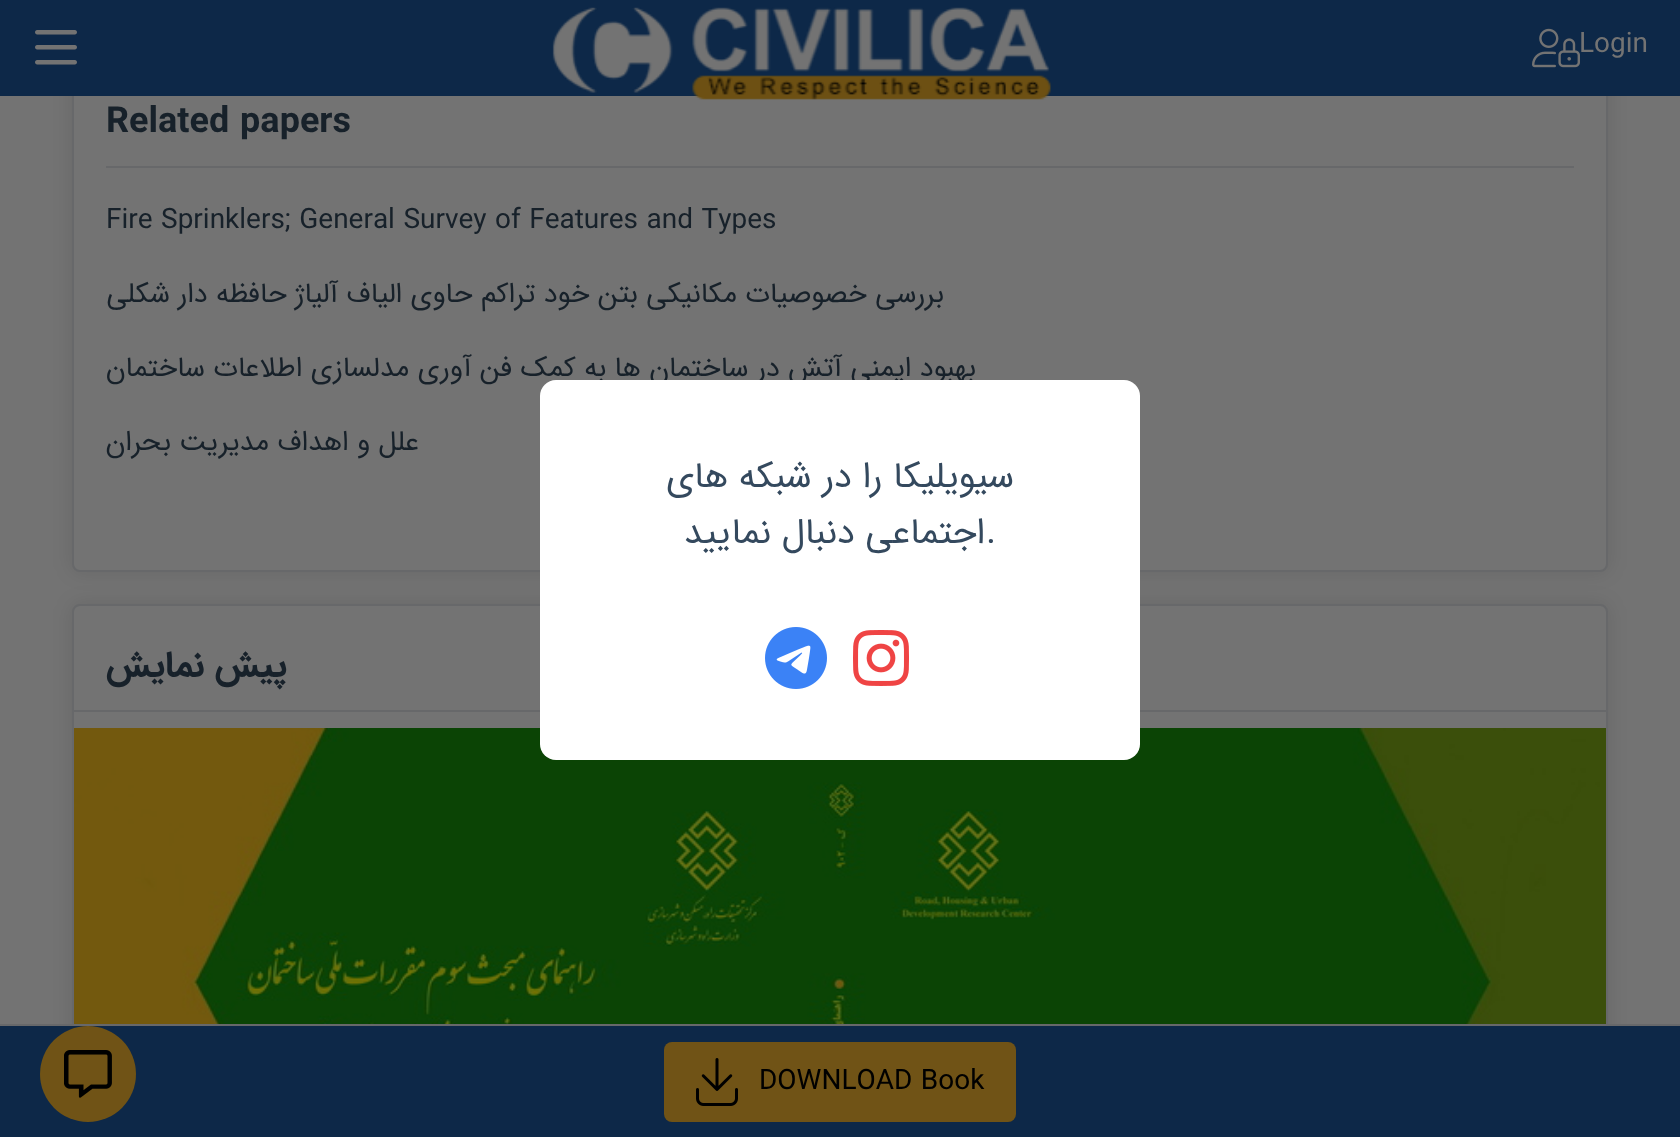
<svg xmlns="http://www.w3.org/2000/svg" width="1680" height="1137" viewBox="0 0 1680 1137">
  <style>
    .t1 { font: 28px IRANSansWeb; fill: #737373; }
    .t2 { font: bold 36px IRANSansWeb; fill: #17212a; }
    .t3 { font: 28px IRANSansWeb; fill: #17212a; }
    .t4 { font: 28px IRANSansWeb; direction: rtl; fill: #17212a; }
    .t5 { font: bold 36px IRANSansWeb; direction: rtl; fill: #17212a; }
    .t6 { font: 28px IRANSansWeb; fill: #000; }
    .t7 { font: 36px IRANSansWeb; direction: rtl; fill: #34495e; }
    .t8 { font: 36px IRANSansWeb; fill: #34495e; }
  </style>
  <rect width="100%" height="100%" fill="#737373"/>
  <rect x="72" y="60" width="1536" height="512" rx="8" fill="#0000001a" filter="blur(10px)"/>
  <rect x="73" y="61" width="1534" height="510" rx="7" fill="#737373" stroke="#67686a" stroke-width="2"/>
  <rect x="0" y="0" width="1680" height="96" fill="#0d2848"/>
  <text x="1579" y="52" class="t1">Login</text>
  <image x="1532" y="28" width="48" height="40" href="images/1.png"/>
  <image x="552" y="7" width="499" height="93" href="images/2.png"/>
  <image x="35" y="30" width="42" height="35" href="images/3.png"/>
  <rect x="106" y="166" width="1468" height="2" fill="#67686a"/>
  <text x="106" y="132" class="t2">Related papers</text>
  <text x="106" y="228" class="t3">Fire Sprinklers; General Survey of Features and Types</text>
  <text x="944" y="302" class="t4">بررسی خصوصیات مکانیکی بتن خود تراکم حاوی الیاف آلیاژ حافظه دار شکلی</text>
  <text x="976" y="376" class="t4">بهبود ایمنی آتش در ساختمان ها به کمک فن آوری مدلسازی اطلاعات ساختمان</text>
  <text x="419" y="450" class="t4">علل و اهداف مدیریت بحران</text>
  <rect x="72" y="604" width="1536" height="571" rx="8" fill="#0000001a" filter="blur(10px)"/>
  <rect x="73" y="605" width="1534" height="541" rx="7" fill="#737373" stroke="#67686a" stroke-width="2"/>
  <rect x="74" y="710" width="1532" height="2" fill="#67686a"/>
  <text x="287" y="676" class="t5">پیش نمایش</text>
  <image x="74" y="728" width="1532" height="296" href="images/4.png"/>
  <rect x="0" y="1024" width="1680" height="2" fill="#67686a"/>
  <rect x="0" y="1026" width="1680" height="111" fill="#0d2848"/>
  <rect x="664" y="1042" width="352" height="80" rx="8" fill="#705316"/>
  <text x="759" y="1089" class="t6">DOWNLOAD Book</text>
  <image x="696" y="1058" width="42" height="48" href="images/5.png"/>
  <rect x="540" y="380" width="600" height="380" rx="16" fill="#fff"/>
  <text x="1014" y="487" class="t7">سیویلیکا را در شبکه های</text>
  <text x="986" y="543" class="t8">.</text>
  <text x="985" y="543" class="t7">اجتماعی دنبال نمایید</text>
  <image x="853" y="630" width="56" height="56" href="images/6.png"/>
  <image x="765" y="627" width="62" height="62" href="images/7.png"/>
  <circle cx="88" cy="1074" r="48" fill="#705316"/>
  <image x="64" y="1050" width="48" height="48" href="images/8.png"/>
</svg>
